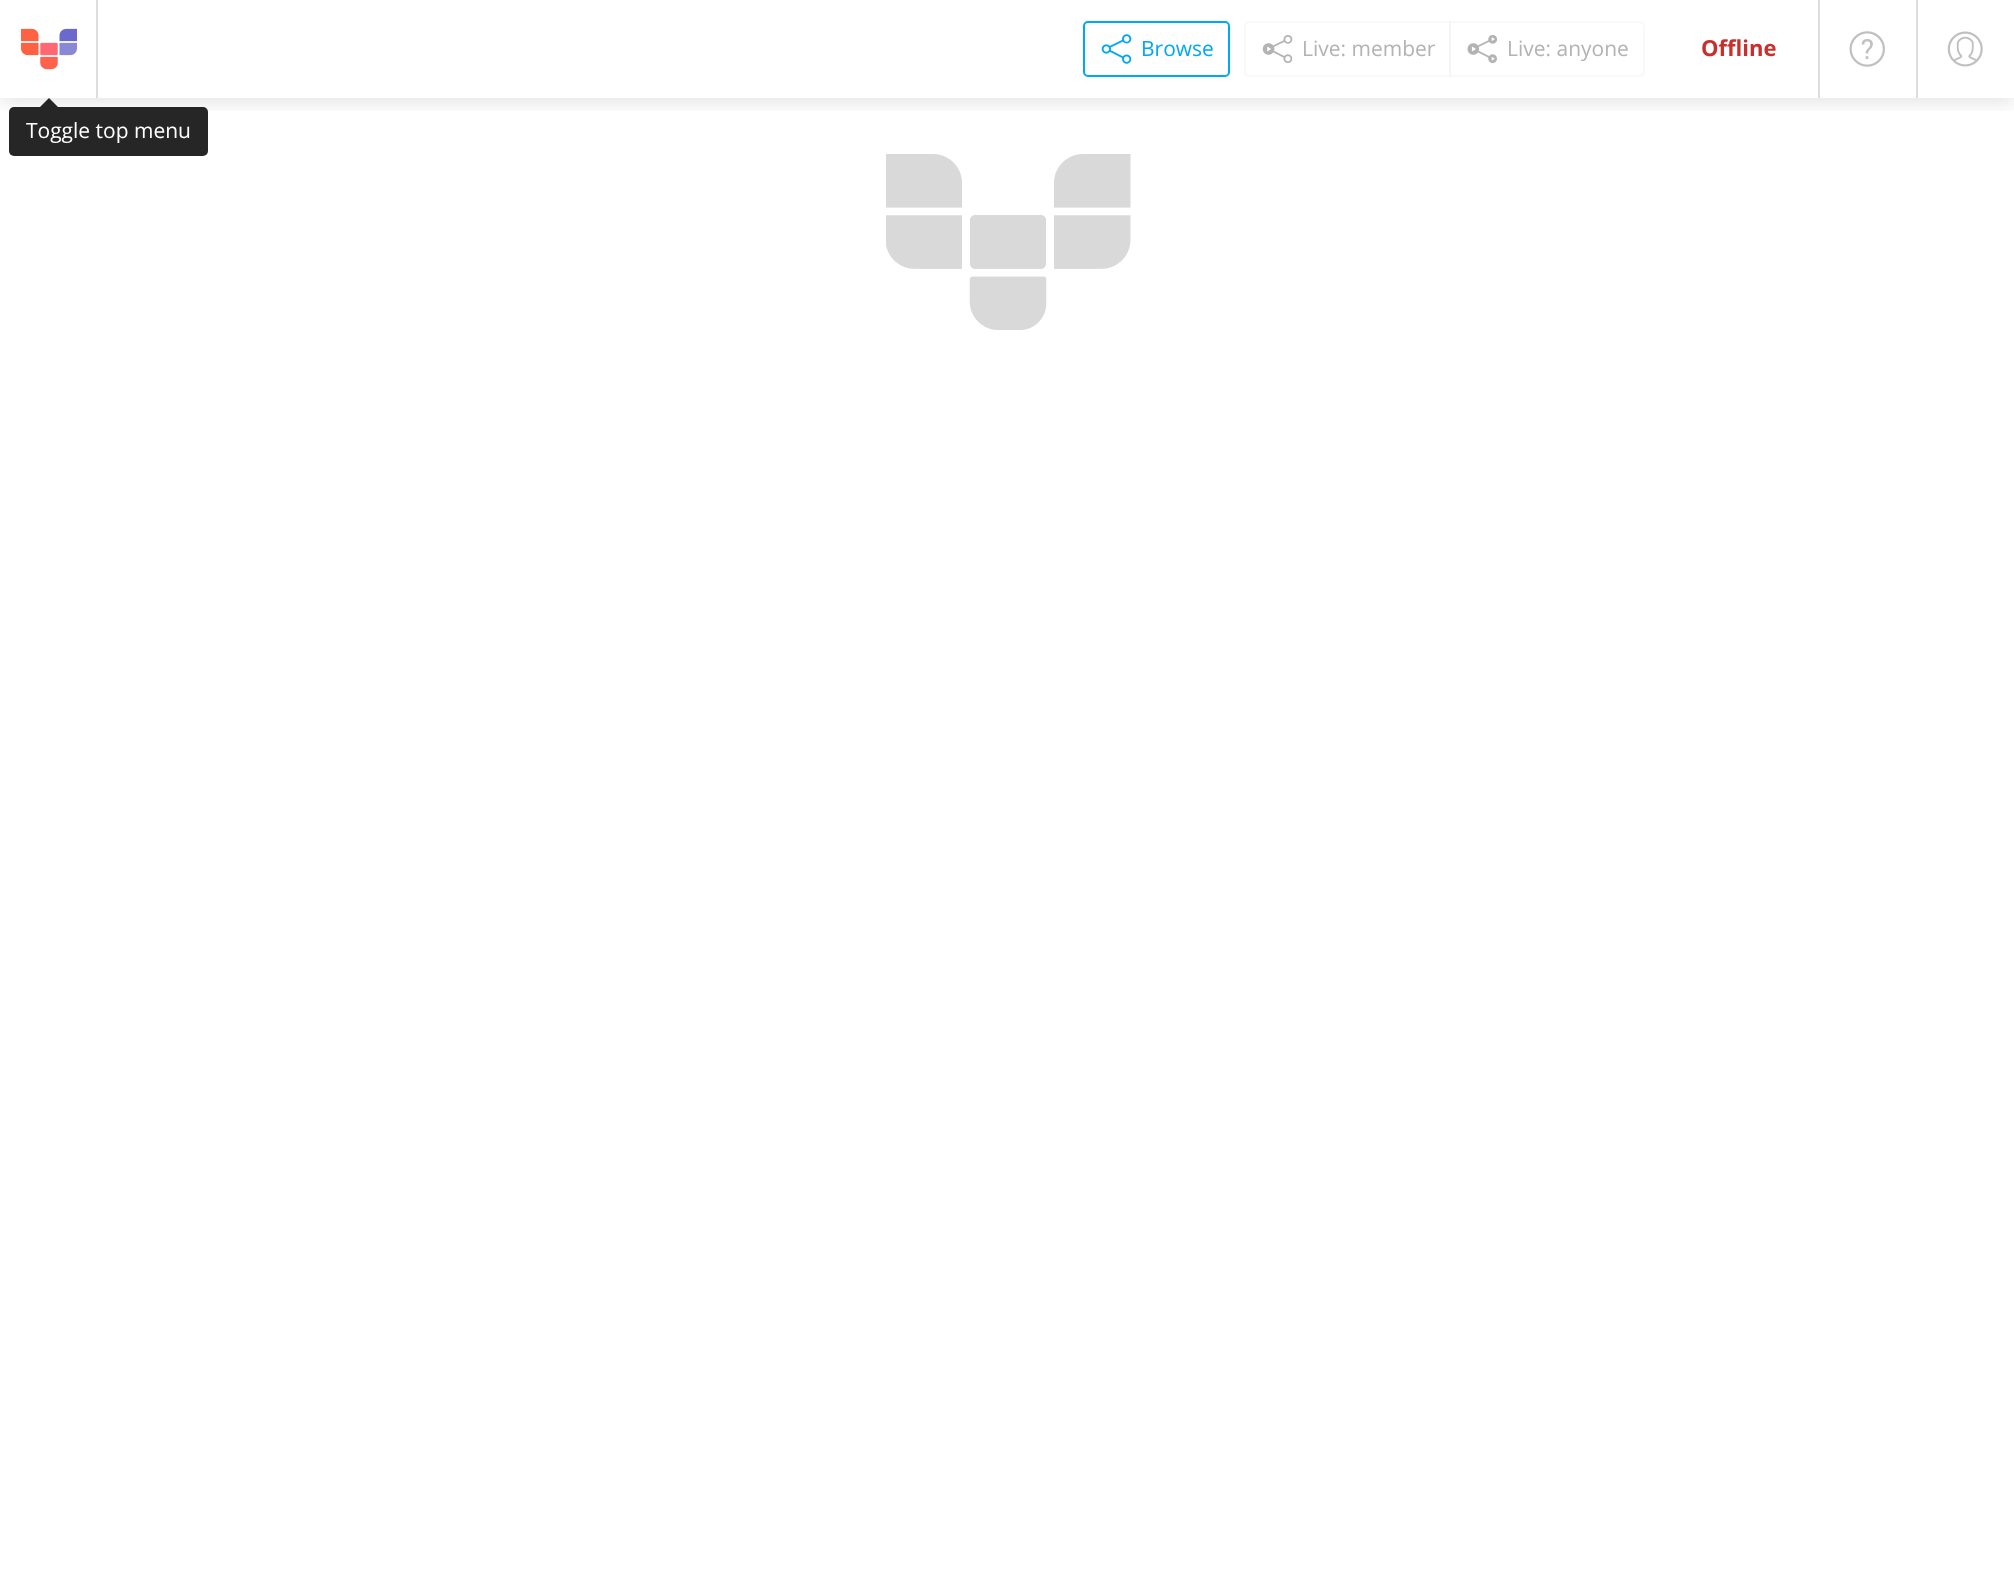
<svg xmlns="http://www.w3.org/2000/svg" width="2014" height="1570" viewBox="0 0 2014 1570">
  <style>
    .t1 { font: 21px Open Sans; fill: #00a7f7; }
    .t2 { font: 21px Open Sans; fill: #b4b3b3; }
    .t3 { font: bold 22px Open Sans; fill: #c9302c; }
    .t4 { font: 21px Open Sans; fill: #fff; }
  </style>
  <defs>
    <clipPath id="clip1"><rect x="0" y="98" width="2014" height="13"/></clipPath>
  </defs>
  <rect width="100%" height="100%" fill="#fff"/>
  <g clip-path="url(#clip1)">
    <rect x="0" y="5" width="2014" height="98" fill="#0000001a" filter="blur(9px)"/>
  </g>
  <image x="21" y="28" width="56" height="42" href="images/1.png"/>
  <rect x="96" y="0" width="2" height="98" fill="#dbdddf"/>
  <rect x="1084" y="22" width="145" height="54" rx="4" fill="none" stroke="#00a7f7" stroke-width="2"/>
  <image x="1101" y="34" width="31" height="30" href="images/2.png"/>
  <text x="1141" y="56" class="t1">Browse</text>
  <path d="M1249 22H1450V76H1249C1247 76 1245 74 1245 72V26C1245 24 1247 22 1249 22Z" fill="none" stroke="#f9f9f9" stroke-width="2"/>
  <image x="1262" y="35" width="31" height="28" href="images/3.png"/>
  <text x="1302" y="56" class="t2">Live: member</text>
  <path d="M1450 22H1640C1642 22 1644 24 1644 26V72C1644 74 1642 76 1640 76H1450Z" fill="none" stroke="#eeeeee59" stroke-width="2"/>
  <image x="1467" y="35" width="30" height="28" href="images/4.png"/>
  <text x="1507" y="56" class="t2">Live: anyone</text>
  <text x="1701" y="56" class="t3">Offline</text>
  <rect x="1818" y="0" width="2" height="98" fill="#dbdddf"/>
  <image x="1849" y="31" width="36" height="36" href="images/5.png"/>
  <rect x="1916" y="0" width="2" height="98" fill="#dbdddf"/>
  <image x="1947" y="31" width="36" height="36" href="images/6.png"/>
  <rect x="9" y="107" width="199" height="49" rx="5" fill="#000000d9"/>
  <path d="M58 107H40L49 98Z" fill="#000000d9"/>
  <text x="26" y="138" class="t4">Toggle top menu</text>
  <image x="886" y="154" width="245" height="176" href="images/7.png"/>
</svg>
